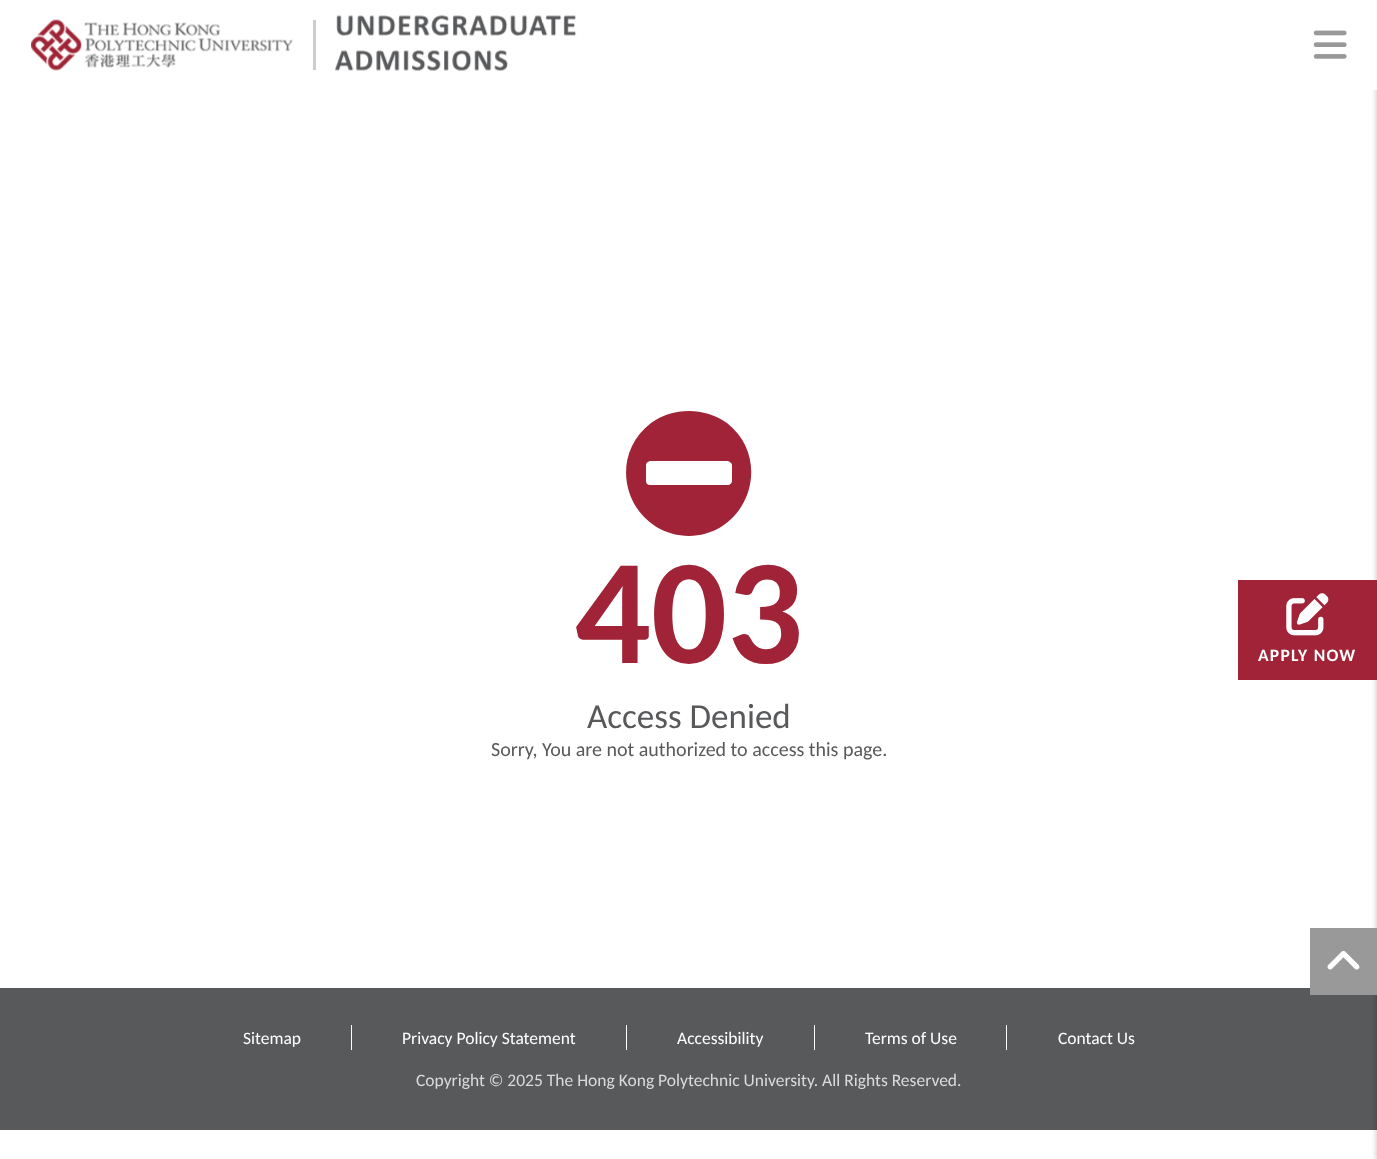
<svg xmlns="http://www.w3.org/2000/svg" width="1377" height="1159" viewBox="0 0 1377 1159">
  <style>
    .t1 { font: bold 150px Carlito; fill: #a02337; }
    .t2 { font: 35px Carlito; fill: #58595b; }
    .t3 { font: 20px Carlito; fill: #58595b; }
    .t4 { font: bold 17.5px Carlito; letter-spacing: 1.25px; fill: #fff; }
    .t5 { font: 17.5px Carlito; fill: #fff; }
    .t6 { font: 17.5px Carlito; fill: #dbdbdb; }
  </style>
  <rect width="100%" height="100%" fill="#fff"/>
  <rect x="0" y="988" width="1377" height="142" fill="#58595b"/>
  <rect x="1376" y="-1" width="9" height="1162" fill="#00000033" filter="blur(2.5px)"/>
  <rect x="1372" y="0" width="5" height="90" fill="#fff"/>
  <rect x="313" y="20" width="3" height="50" fill="#cdcdcd"/>
  <image x="31" y="19" width="262" height="52" href="images/1.png"/>
  <image x="335" y="15" width="242" height="56" href="images/2.png"/>
  <image x="1313" y="30" width="34" height="29" href="images/3.png"/>
  <path d="M689 536C748 535 774 460 727 423C716 415 702 411 689 411C675 411 662 415 651 423C603 460 629 535 689 536ZM650 461H728C730 462 732 463 732 465V481C732 483 730 485 728 485H650C647 485 646 483 646 481V465C646 463 647 462 650 461Z" fill="#a02337"/>
  <text x="575" y="663" class="t1">403</text>
  <text x="587" y="728" class="t2">Access Denied</text>
  <text x="491" y="756" class="t3">Sorry, You are not authorized to access this page.</text>
  <rect x="1238" y="580" width="139" height="100" fill="#a02337"/>
  <image x="1286" y="593" width="43" height="43" href="images/4.png"/>
  <text x="1258" y="661" class="t4">APPLY NOW</text>
  <rect x="1310" y="928" width="67" height="67" fill="#999"/>
  <image x="1327" y="951" width="33" height="19" href="images/5.png"/>
  <rect x="351" y="1025" width="1" height="25" fill="#fff"/>
  <text x="243" y="1044" class="t5">Sitemap</text>
  <rect x="626" y="1025" width="1" height="25" fill="#fff"/>
  <text x="402" y="1044" class="t5">Privacy Policy Statement</text>
  <rect x="814" y="1025" width="1" height="25" fill="#fff"/>
  <text x="677" y="1044" class="t5">Accessibility</text>
  <rect x="1006" y="1025" width="1" height="25" fill="#fff"/>
  <text x="865" y="1044" class="t5">Terms of Use</text>
  <text x="1058" y="1044" class="t5">Contact Us</text>
  <text x="416" y="1086" class="t6">Copyright © 2025 The Hong Kong Polytechnic University. All Rights Reserved.</text>
</svg>
